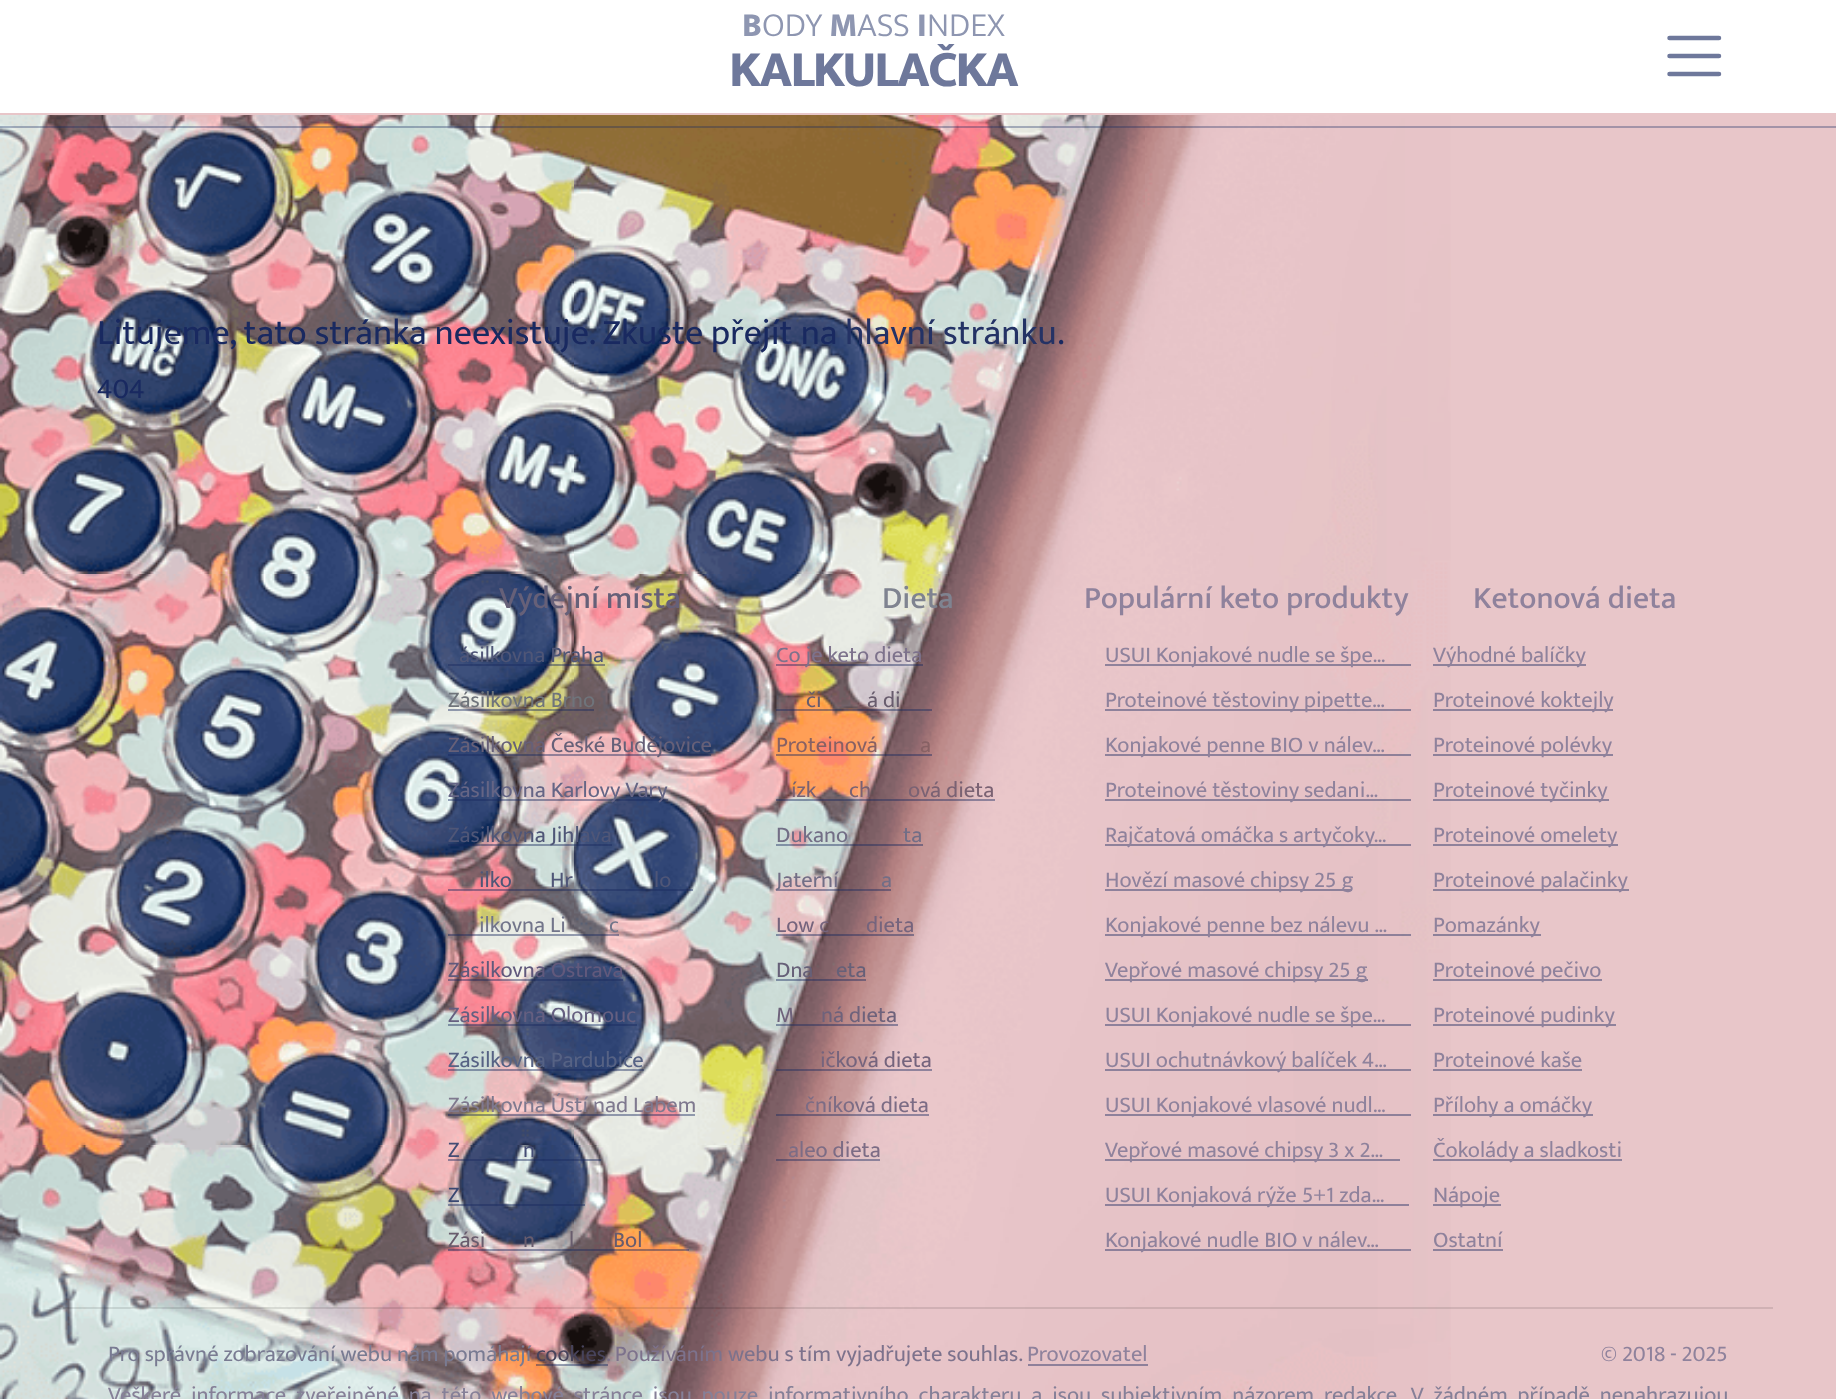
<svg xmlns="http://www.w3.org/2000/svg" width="1836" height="1399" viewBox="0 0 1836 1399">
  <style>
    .t1 { font: 800 34px Mukta; fill: #8e96b1; }
    .t2 { font: 300 34px Mukta; fill: #8e96b1; }
    .t3 { font: 800 51.75px Mukta; letter-spacing: -2.25px; fill: #6e789b; }
    .t4 { font: 36px Mukta; fill: #192960; }
    .t5 { font: 36px Mukta; fill: #243265; }
    .t6 { font: 29px Mukta; fill: #192960; }
    .t7 { font: 500 31.5px Mukta; fill: #666078; }
    .t8 { font: 22.5px Mukta; fill: #4f5677; }
    .t9 { font: 22.5px Mukta; fill: #6f747b; }
    .t10 { font: 22.5px Mukta; fill: #666078; }
    .t11 { font: 22.5px Mukta; fill: #656585; }
    .t12 { font: 22.5px Mukta; fill: #72758a; }
    .t13 { font: 22.5px Mukta; fill: #61597c; }
    .t14 { font: 22.5px Mukta; fill: #655f80; }
    .t15 { font: 22.5px Mukta; fill: #566284; }
    .t16 { font: 22.5px Mukta; fill: #7f798f; }
    .t17 { font: 22.5px Mukta; fill: #454d75; }
    .t18 { font: 22.5px Mukta; fill: #3a4872; }
    .t19 { font: 22.5px Mukta; fill: #685c6d; }
    .t20 { font: 500 31.5px Mukta; fill: #7f8390; }
    .t21 { font: 22.5px Mukta; fill: #7d728c; }
    .t22 { font: 22.5px Mukta; fill: #876164; }
    .t23 { font: 22.5px Mukta; fill: #7a6273; }
    .t24 { font: 22.5px Mukta; fill: #726e86; }
    .t25 { font: 22.5px Mukta; fill: #75647d; }
    .t26 { font: 22.5px Mukta; fill: #6e627b; }
    .t27 { font: 22.5px Mukta; fill: #7c6c85; }
    .t28 { font: 500 31.5px Mukta; fill: #8f829c; }
    .t29 { font: 22.5px Mukta; fill: #8f829c; }
    .t30 { font: 22.5px Mukta; fill: #797b92; }
    .t31 { font: 22.5px Mukta; fill: #47435b; }
    .t32 { font: 22.5px Mukta; fill: #868098; }
  </style>
  <rect width="100%" height="100%" fill="#e8c6c9"/>
  <image x="0" y="115" width="1451" height="1284" href="images/1.png"/>
  <rect x="0" y="0" width="1836" height="113" fill="#fff"/>
  <text x="742" y="36" class="t1">B</text>
  <text x="762" y="36" class="t2">ODY</text>
  <text x="829" y="36" class="t1">M</text>
  <text x="857" y="36" class="t2">ASS</text>
  <text x="917" y="36" class="t1">I</text>
  <text x="927" y="36" class="t2">NDEX</text>
  <text x="729" y="86" class="t3">KALKULAČKA</text>
  <path d="M1669.5 38H1719M1669.5 56H1719M1669.5 74H1719" fill="none" stroke="#6e789b" stroke-width="4.5" stroke-linecap="round"/>
  <rect x="0" y="126" width="1836" height="2" fill="#19296054"/>
  <text x="97" y="344" class="t4">Litujeme, tato stránka neexistuje. Zkuste přejít na</text>
  <text x="845" y="344" class="t5">hlavní stránku</text>
  <text x="1057" y="344" class="t4">.</text>
  <text x="97" y="398" class="t6">404</text>
  <text x="499" y="608" class="t7">Výdejní místa</text>
  <text x="459" y="662" class="t8">ásilkovna Praha</text>
  <rect x="448" y="664" width="157" height="2" fill="#1929606e"/>
  <text x="448" y="707" class="t9">Zásilkovna Brno</text>
  <rect x="448" y="709" width="146" height="2" fill="#1929606e"/>
  <rect x="448" y="754" width="263" height="2" fill="#1929606e"/>
  <text x="448" y="752" class="t10">Zásilkovna České Budějovice</text>
  <rect x="448" y="799" width="220" height="2" fill="#1929606e"/>
  <text x="448" y="797" class="t11">Zásilkovna Karlovy Vary</text>
  <rect x="448" y="844" width="164" height="2" fill="#1929606e"/>
  <text x="448" y="842" class="t8">Zásilkovna Jihlava</text>
  <text x="479" y="887" class="t8">ilko</text>
  <rect x="448" y="889" width="245" height="2" fill="#1929606e"/>
  <text x="550" y="887" class="t8">Hr</text>
  <text x="654" y="887" class="t8">lo</text>
  <text x="479" y="932" class="t12">ilkovna Li</text>
  <text x="609" y="932" class="t12">c</text>
  <rect x="448" y="934" width="171" height="2" fill="#1929606e"/>
  <text x="448" y="977" class="t13">Zásilkovna Ostrava</text>
  <rect x="448" y="979" width="175" height="2" fill="#1929606e"/>
  <text x="448" y="1022" class="t14">Zásilkovna Olomouc</text>
  <rect x="448" y="1024" width="189" height="2" fill="#1929606e"/>
  <text x="448" y="1067" class="t15">Zásilkovna Pardubice</text>
  <rect x="448" y="1069" width="196" height="2" fill="#1929606e"/>
  <text x="448" y="1112" class="t16">Zásilkovna Ústí nad Labem</text>
  <rect x="448" y="1114" width="247" height="2" fill="#1929606e"/>
  <text x="448" y="1157" class="t17">Z</text>
  <text x="523" y="1157" class="t17">n</text>
  <rect x="448" y="1159" width="153" height="2" fill="#1929606e"/>
  <text x="448" y="1202" class="t18">Z</text>
  <rect x="448" y="1204" width="137" height="2" fill="#1929606e"/>
  <text x="448" y="1247" class="t19">Zási</text>
  <text x="523" y="1247" class="t19">n</text>
  <rect x="448" y="1249" width="241" height="2" fill="#1929606e"/>
  <text x="569" y="1247" class="t19">l</text>
  <text x="613" y="1247" class="t19">Bol</text>
  <text x="882" y="608" class="t20">Dieta</text>
  <rect x="776" y="664" width="147" height="2" fill="#1929606e"/>
  <text x="776" y="662" class="t21">Co je keto dieta</text>
  <text x="806" y="707" class="t19">či</text>
  <rect x="776" y="709" width="156" height="2" fill="#1929606e"/>
  <text x="867" y="707" class="t19">á di</text>
  <text x="776" y="752" class="t22">Proteinová</text>
  <text x="920" y="752" class="t22">a</text>
  <rect x="776" y="754" width="156" height="2" fill="#1929606e"/>
  <text x="791" y="797" class="t23">ízk</text>
  <text x="849" y="797" class="t23">ch</text>
  <text x="908" y="797" class="t23">ová dieta</text>
  <rect x="776" y="799" width="219" height="2" fill="#1929606e"/>
  <text x="776" y="842" class="t24">Dukano</text>
  <text x="903" y="842" class="t24">ta</text>
  <rect x="776" y="844" width="147" height="2" fill="#1929606e"/>
  <rect x="776" y="889" width="115" height="2" fill="#1929606e"/>
  <text x="776" y="887" class="t24">Jaterní</text>
  <text x="881" y="887" class="t24">a</text>
  <text x="776" y="932" class="t25">Low c</text>
  <rect x="776" y="934" width="138" height="2" fill="#1929606e"/>
  <text x="866" y="932" class="t25">dieta</text>
  <text x="776" y="977" class="t10">Dna</text>
  <text x="836" y="977" class="t10">eta</text>
  <rect x="776" y="979" width="90" height="2" fill="#1929606e"/>
  <text x="776" y="1022" class="t26">M</text>
  <rect x="776" y="1024" width="122" height="2" fill="#1929606e"/>
  <text x="821" y="1022" class="t26">ná dieta</text>
  <text x="820" y="1067" class="t25">ičková dieta</text>
  <rect x="776" y="1069" width="156" height="2" fill="#1929606e"/>
  <text x="805" y="1112" class="t27">čníková dieta</text>
  <rect x="776" y="1114" width="153" height="2" fill="#1929606e"/>
  <text x="788" y="1157" class="t27">aleo dieta</text>
  <rect x="776" y="1159" width="104" height="2" fill="#1929606e"/>
  <text x="1084" y="608" class="t28">Populární keto produkty</text>
  <rect x="1105" y="664" width="306" height="2" fill="#1929606e"/>
  <text x="1105" y="662" class="t29">USUI Konjakové nudle se špe…</text>
  <rect x="1105" y="709" width="306" height="2" fill="#1929606e"/>
  <text x="1105" y="707" class="t29">Proteinové těstoviny pipette…</text>
  <rect x="1105" y="754" width="306" height="2" fill="#1929606e"/>
  <text x="1105" y="752" class="t29">Konjakové penne BIO v nálev…</text>
  <rect x="1105" y="799" width="306" height="2" fill="#1929606e"/>
  <text x="1105" y="797" class="t29">Proteinové těstoviny sedani…</text>
  <rect x="1105" y="844" width="306" height="2" fill="#1929606e"/>
  <text x="1105" y="842" class="t29">Rajčatová omáčka s artyčoky…</text>
  <rect x="1105" y="889" width="247" height="2" fill="#1929606e"/>
  <text x="1105" y="887" class="t29">Hovězí masové chipsy 25 g</text>
  <rect x="1105" y="934" width="306" height="2" fill="#1929606e"/>
  <text x="1105" y="932" class="t29">Konjakové penne bez nálevu …</text>
  <rect x="1105" y="979" width="263" height="2" fill="#1929606e"/>
  <text x="1105" y="977" class="t29">Vepřové masové chipsy 25 g</text>
  <rect x="1105" y="1024" width="306" height="2" fill="#1929606e"/>
  <text x="1105" y="1022" class="t29">USUI Konjakové nudle se špe…</text>
  <rect x="1105" y="1069" width="306" height="2" fill="#1929606e"/>
  <text x="1105" y="1067" class="t29">USUI ochutnávkový balíček 4…</text>
  <rect x="1105" y="1114" width="306" height="2" fill="#1929606e"/>
  <text x="1105" y="1112" class="t29">USUI Konjakové vlasové nudl…</text>
  <rect x="1105" y="1159" width="295" height="2" fill="#1929606e"/>
  <text x="1105" y="1157" class="t29">Vepřové masové chipsy 3 x 2…</text>
  <rect x="1105" y="1204" width="304" height="2" fill="#8e809a"/>
  <text x="1105" y="1202" class="t29">USUI Konjaková rýže 5+1 zda…</text>
  <rect x="1105" y="1249" width="306" height="2" fill="#8e809a"/>
  <text x="1105" y="1247" class="t29">Konjakové nudle BIO v nálev…</text>
  <text x="1473" y="608" class="t28">Ketonová dieta</text>
  <rect x="1433" y="664" width="153" height="2" fill="#1929606e"/>
  <text x="1433" y="662" class="t29">Výhodné balíčky</text>
  <rect x="1433" y="709" width="180" height="2" fill="#1929606e"/>
  <text x="1433" y="707" class="t29">Proteinové koktejly</text>
  <rect x="1433" y="754" width="180" height="2" fill="#1929606e"/>
  <text x="1433" y="752" class="t29">Proteinové polévky</text>
  <rect x="1433" y="799" width="176" height="2" fill="#1929606e"/>
  <text x="1433" y="797" class="t29">Proteinové tyčinky</text>
  <rect x="1433" y="844" width="185" height="2" fill="#1929606e"/>
  <text x="1433" y="842" class="t29">Proteinové omelety</text>
  <rect x="1433" y="889" width="196" height="2" fill="#1929606e"/>
  <text x="1433" y="887" class="t29">Proteinové palačinky</text>
  <rect x="1433" y="934" width="108" height="2" fill="#1929606e"/>
  <text x="1433" y="932" class="t29">Pomazánky</text>
  <rect x="1433" y="979" width="169" height="2" fill="#1929606e"/>
  <text x="1433" y="977" class="t29">Proteinové pečivo</text>
  <rect x="1433" y="1024" width="183" height="2" fill="#1929606e"/>
  <text x="1433" y="1022" class="t29">Proteinové pudinky</text>
  <text x="1433" y="1067" class="t29">Proteinové kaše</text>
  <rect x="1433" y="1069" width="149" height="2" fill="#1929606e"/>
  <rect x="1433" y="1114" width="160" height="2" fill="#1929606e"/>
  <text x="1433" y="1112" class="t29">Přílohy a omáčky</text>
  <rect x="1433" y="1159" width="189" height="2" fill="#1929606e"/>
  <text x="1433" y="1157" class="t29">Čokolády a sladkosti</text>
  <rect x="1433" y="1204" width="68" height="2" fill="#1929606e"/>
  <text x="1433" y="1202" class="t29">Nápoje</text>
  <text x="1433" y="1247" class="t29">Ostatní</text>
  <rect x="1433" y="1249" width="70" height="2" fill="#1929606e"/>
  <rect x="63" y="1307" width="1710" height="2" fill="#0000001a"/>
  <text x="108" y="1361" class="t30">Pro správné zobrazování webu nám pomáhají</text>
  <text x="536" y="1361" class="t31">cookies</text>
  <rect x="536" y="1364" width="72" height="2" fill="#1929606e"/>
  <text x="606" y="1361" class="t21">. Používáním webu s tím vyjadřujete souhlas.</text>
  <text x="1027" y="1361" class="t29">Provozovatel</text>
  <rect x="1028" y="1364" width="120" height="2" fill="#8e809a"/>
  <text x="1601" y="1361" class="t29">© 2018 - 2025</text>
  <text x="108" y="1402" word-spacing="4.9" class="t32">Veškeré informace zveřejněné na této webové stránce jsou pouze informativního charakteru a jsou subjektivním názorem redakce. V žádném případě nenahrazujou</text>
</svg>
